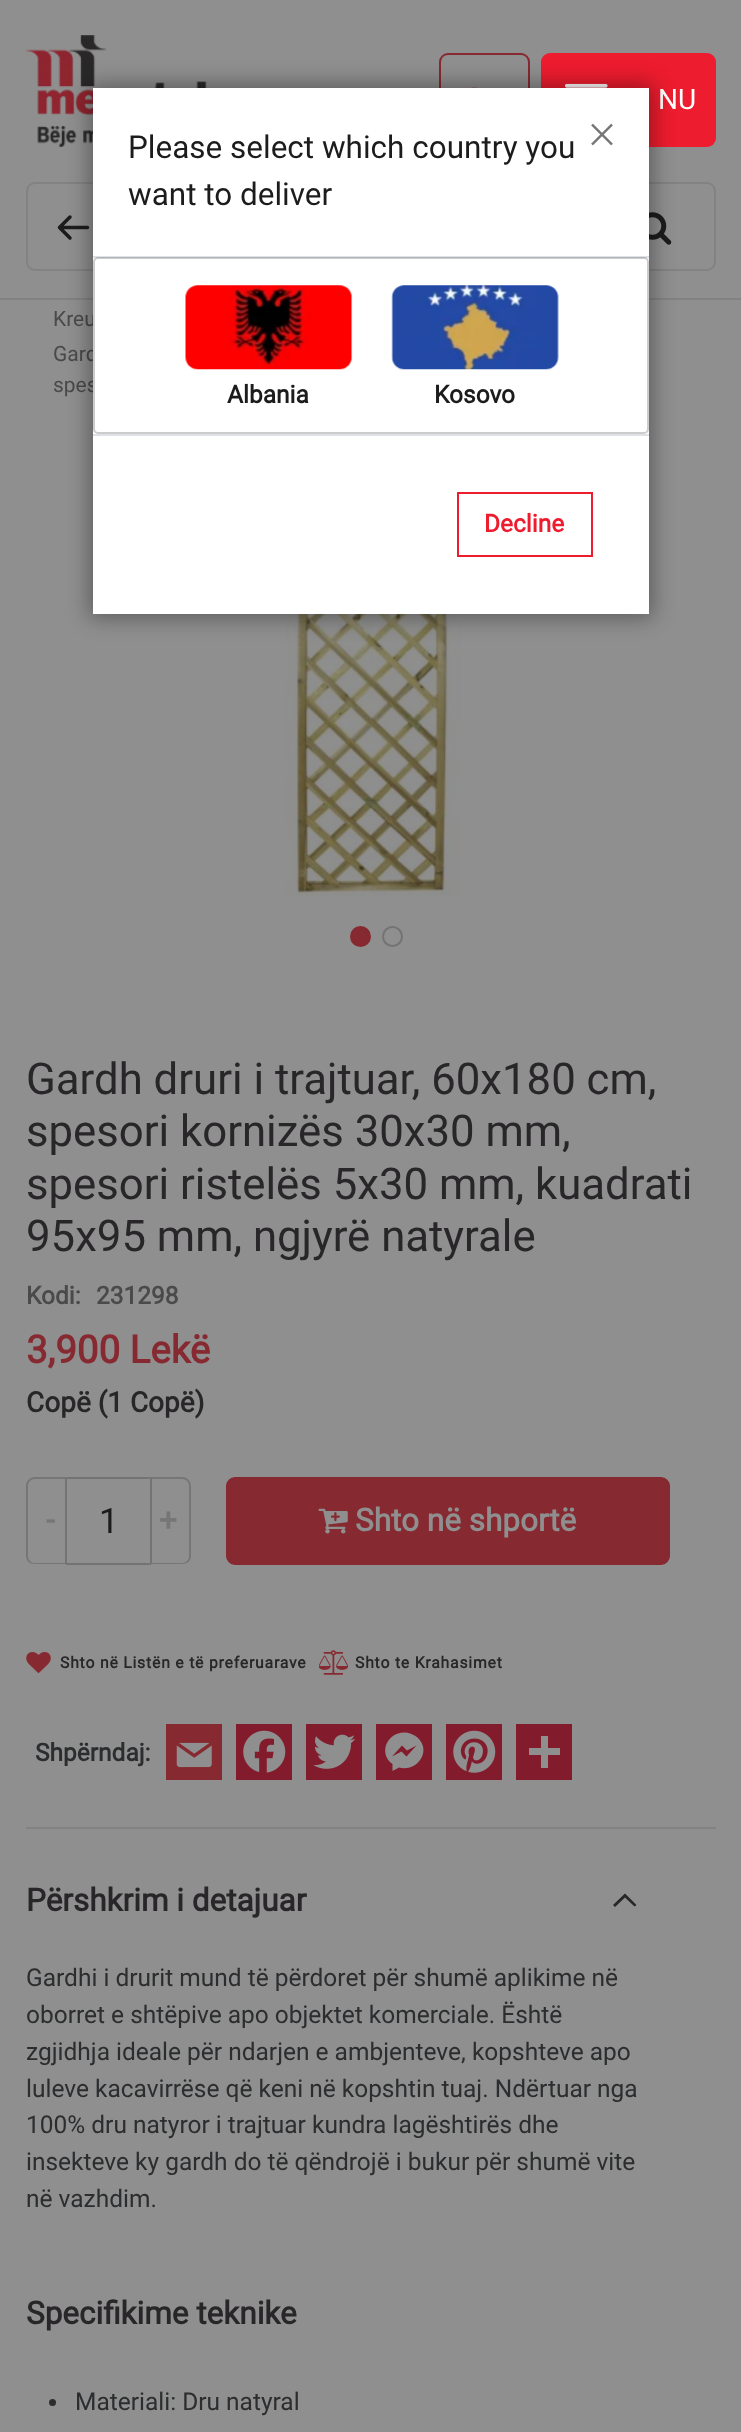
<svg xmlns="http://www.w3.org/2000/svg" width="741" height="2432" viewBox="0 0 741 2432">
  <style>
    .t1 { font: 28px Roboto; fill: #fff; }
    .t2 { font: 21px Roboto; fill: #4a4a4a; }
    .t3 { font: 43.75px Roboto; fill: #282628; }
    .t4 { font: bold 24.5px Roboto; fill: #4a4a4a; }
    .t5 { font: bold 38.5px Roboto; fill: #872931; }
    .t6 { font: bold 28px Roboto; fill: #282628; }
    .t7 { font: bold 31.5px Roboto; fill: #767676; }
    .t8 { font: 35px Roboto; fill: #1c1c1c; }
    .t9 { font: bold 31.5px Roboto; fill: #8f8f8f; }
    .t10 { font: bold 15.75px Roboto; letter-spacing: 0.8px; fill: #282628; }
    .t11 { font: bold 24.5px Roboto; fill: #2b2d2f; }
    .t12 { font: bold 31.5px Roboto; fill: #282628; }
    .t13 { font: 24.5px Roboto; fill: #2b2d2f; }
    .t14 { font: 31.5px Roboto; fill: #1c1c1c; }
    .t15 { font: bold 24.5px Roboto; fill: #1c1c1c; }
    .t16 { font: bold 24.5px Roboto; fill: #ed1c2e; }
  </style>
  <rect width="100%" height="100%" fill="#8f8f8f"/>
  <rect x="0" y="298" width="741" height="2" fill="#828282"/>
  <rect x="440" y="54" width="89" height="92" rx="8" fill="none" stroke="#872931" stroke-width="2"/>
  <image x="471" y="87" width="6" height="1" href="images/1.png"/>
  <rect x="27" y="183" width="688" height="87" rx="8" fill="none" stroke="#828282" stroke-width="2"/>
  <path d="M87.5 227.5H59.5M70 238L59.5 227.5L70 217" fill="none" stroke="#1c1c1c" stroke-width="3.5" stroke-linecap="round" stroke-linejoin="round"/>
  <image x="649" y="212" width="23" height="33" href="images/2.png"/>
  <image x="26" y="35" width="181" height="112" href="images/3.png"/>
  <rect x="541" y="53" width="175" height="94" rx="9" fill="#ed1c2e"/>
  <image x="564" y="83" width="44" height="5" href="images/4.png"/>
  <text x="658" y="109" class="t1">NU</text>
  <text x="53" y="326" class="t2">Kreu</text>
  <text x="53" y="361" class="t2">Gard</text>
  <text x="53" y="392" class="t2">spes</text>
  <rect x="26" y="1827" width="690" height="2" fill="#828282"/>
  <image x="285" y="614" width="176" height="283" href="images/5.png"/>
  <circle cx="360.5" cy="936.5" r="9.5" fill="#872931" stroke="#872931" stroke-width="2"/>
  <circle cx="392.5" cy="936.5" r="9.5" fill="none" stroke="#737373" stroke-width="2"/>
  <text x="26" y="1094" class="t3">Gardh druri i trajtuar, 60x180 cm,</text>
  <text x="26" y="1146" class="t3">spesori kornizës 30x30 mm,</text>
  <text x="26" y="1199" class="t3">spesori ristelës 5x30 mm, kuadrati</text>
  <text x="26" y="1251" class="t3">95x95 mm, ngjyrë natyrale</text>
  <text x="26" y="1304" class="t4">Kodi:</text>
  <text x="96" y="1304" class="t4">231298</text>
  <text x="26" y="1363" class="t5">3,900 Lekë</text>
  <text x="26" y="1412" class="t6">Copë (1 Copë)</text>
  <path d="M35 1477H70V1564H35C30 1564 26 1561 26 1556V1486C26 1481 30 1477 35 1477ZM35 1479H70V1563H35C31 1563 28 1560 28 1556V1486C28 1482 31 1479 35 1479Z" fill="#767676" fill-rule="evenodd"/>
  <text x="46" y="1531" class="t7">-</text>
  <rect x="66" y="1478" width="85" height="86" rx="1" fill="none" stroke="#737373" stroke-width="2"/>
  <text x="99" y="1533" class="t8">1</text>
  <path d="M147 1477H182C187 1477 191 1481 191 1486V1556C191 1561 187 1564 182 1564H147ZM147 1479H182C186 1479 189 1482 189 1486V1556C189 1560 186 1563 182 1563H147Z" fill="#767676" fill-rule="evenodd"/>
  <text x="159" y="1531" class="t7">+</text>
  <rect x="227" y="1478" width="442" height="86" rx="8" fill="#872931" stroke="#872931" stroke-width="2"/>
  <image x="318" y="1508" width="30" height="26" href="images/6.png"/>
  <text x="355" y="1531" class="t9">Shto në shportë</text>
  <image x="26" y="1652" width="25" height="21" href="images/7.png"/>
  <text x="60" y="1668" class="t10">Shto në Listën e të preferuarave</text>
  <image x="319" y="1650" width="29" height="25" href="images/8.png"/>
  <text x="355" y="1668" class="t10">Shto te Krahasimet</text>
  <text x="35" y="1761" class="t11">Shpërndaj:</text>
  <rect x="166" y="1724" width="56" height="56" fill="#872931"/>
  <image x="176" y="1742" width="36" height="26" href="images/9.png"/>
  <rect x="236" y="1724" width="56" height="56" fill="#821c2d"/>
  <image x="243" y="1730" width="43" height="43" href="images/10.png"/>
  <rect x="306" y="1724" width="56" height="56" fill="#821c2d"/>
  <image x="313" y="1734" width="43" height="35" href="images/11.png"/>
  <rect x="376" y="1724" width="56" height="56" fill="#821c2d"/>
  <path d="M404 1732.5C387 1732.5 378 1753.5 392.5 1764V1771L399 1767.5C416.5 1772.5 432.5 1751.5 417.5 1737.5C414 1734.5 409 1732.5 404 1732.5M406.5 1756.5L401.5 1751.5L392 1756.5L402 1745.5L407 1750.5L416.5 1745.5Z" fill="#8f8f8f"/>
  <rect x="446" y="1724" width="56" height="56" fill="#821c2d"/>
  <image x="453" y="1730" width="43" height="43" href="images/12.png"/>
  <rect x="516" y="1724" width="56" height="56" fill="#821c2d"/>
  <rect x="541" y="1736" width="7" height="32" fill="#8f8f8f"/>
  <rect x="529" y="1748" width="31" height="7" fill="#8f8f8f"/>
  <text x="26" y="1911" class="t12">Përshkrim i detajuar</text>
  <path d="M625 1897.5L634.5 1906.5L636.5 1905L625 1893.5L613 1905L615 1907Z" fill="#282628"/>
  <text x="26" y="1986" class="t13">Gardhi i drurit mund të përdoret për shumë aplikime në</text>
  <text x="26" y="2023" class="t13">oborret e shtëpive apo objektet komerciale. Është</text>
  <text x="26" y="2060" class="t13">zgjidhja ideale për ndarjen e ambjenteve, kopshteve apo</text>
  <text x="26" y="2097" class="t13">luleve kacavirrëse që keni në kopshtin tuaj. Ndërtuar nga</text>
  <text x="26" y="2133" class="t13">100% dru natyror i trajtuar kundra lagështirës dhe</text>
  <text x="26" y="2170" class="t13">insekteve ky gardh do të qëndrojë i bukur për shumë vite</text>
  <text x="26" y="2207" class="t13">në vazhdim.</text>
  <text x="26" y="2324" class="t12">Specifikime teknike</text>
  <circle cx="52.5" cy="2402.5" r="3.5" fill="#2b2d2f"/>
  <text x="75" y="2410" class="t13">Materiali: Dru natyral</text>
  <rect x="89" y="84" width="564" height="534" fill="#00000059" filter="blur(10.5px)"/>
  <rect x="93" y="88" width="556" height="526" fill="#fff"/>
  <rect x="93" y="256" width="556" height="2" fill="#dee2e6"/>
  <text x="128" y="158" class="t14">Please select which country you</text>
  <text x="128" y="205" class="t14">want to deliver</text>
  <image x="591" y="123" width="22" height="23" href="images/13.png"/>
  <rect x="94" y="258" width="554" height="175" rx="4" fill="none" stroke="#00000033" stroke-width="2"/>
  <image x="185" y="285" width="168" height="85" href="images/14.png"/>
  <text x="227" y="403" class="t15">Albania</text>
  <image x="391" y="285" width="168" height="85" href="images/15.png"/>
  <text x="434" y="403" class="t15">Kosovo</text>
  <rect x="93" y="434" width="556" height="2" fill="#dee2e6"/>
  <rect x="458" y="493" width="134" height="63" fill="none" stroke="#ed1c2e" stroke-width="2"/>
  <text x="484" y="532" class="t16">Decline</text>
</svg>
